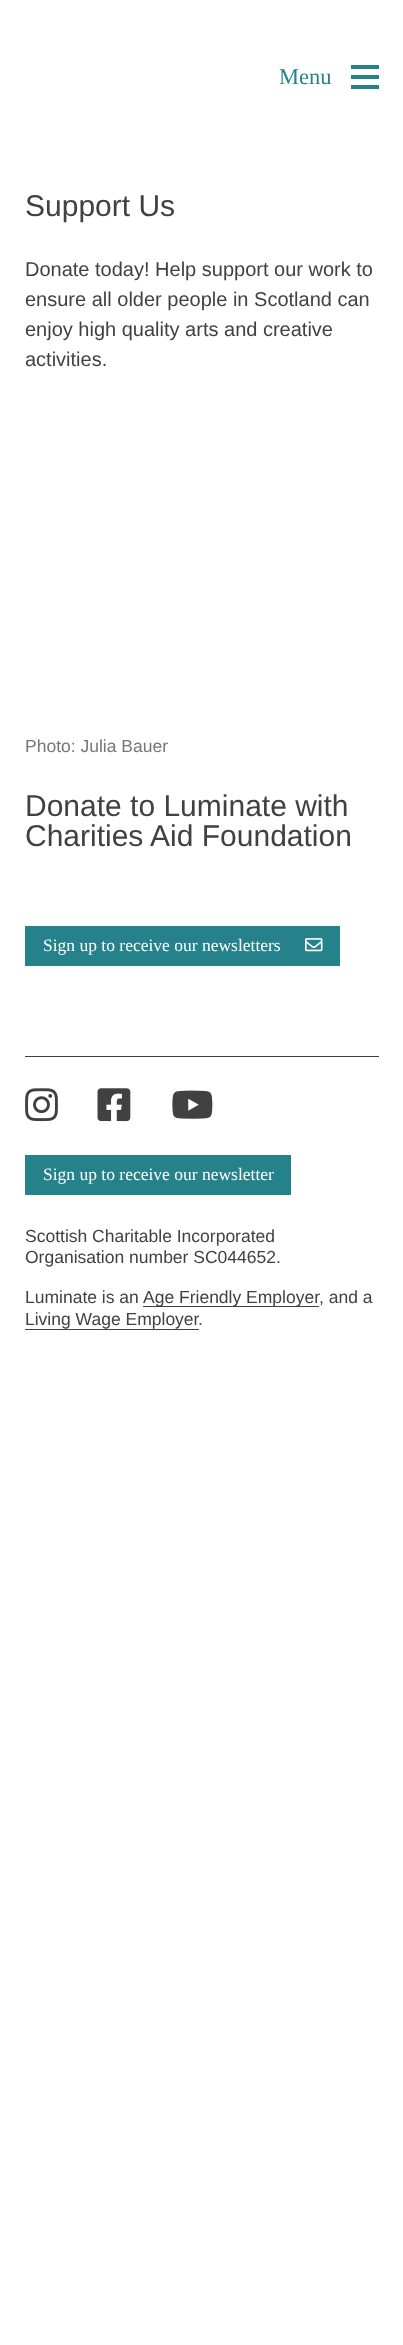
<svg xmlns="http://www.w3.org/2000/svg" width="403" height="2345" viewBox="0 0 403 2345">
  <style>
    .t1 { font: 22.5px Liberation Serif; fill: #25828a; }
    .t2 { font: 30px Liberation Sans; fill: #414141; }
    .t3 { font: 20px Liberation Sans; fill: #414141; }
    .t4 { font: 17.5px Liberation Sans; fill: #767676; }
    .t5 { font: 17.5px Liberation Serif; fill: #fff; }
    .t6 { font: 17.5px Liberation Sans; fill: #414141; }
  </style>
  <rect width="100%" height="100%" fill="#fff"/>
  <text x="279" y="84" class="t1">Menu</text>
  <rect x="351" y="65" width="28" height="4" fill="#25828a"/>
  <rect x="351" y="75" width="28" height="4" fill="#25828a"/>
  <rect x="351" y="85" width="28" height="4" fill="#25828a"/>
  <text x="25" y="216" class="t2">Support Us</text>
  <text x="25" y="276" class="t3">Donate today! Help support our work to</text>
  <text x="25" y="306" class="t3">ensure all older people in Scotland can</text>
  <text x="25" y="336" class="t3">enjoy high quality arts and creative</text>
  <text x="25" y="366" class="t3">activities.</text>
  <text x="25" y="752" class="t4">Photo: Julia Bauer</text>
  <text x="25" y="816" class="t2">Donate to Luminate with</text>
  <text x="25" y="846" class="t2">Charities Aid Foundation</text>
  <rect x="25" y="926" width="315" height="40" fill="#25828a"/>
  <text x="43" y="951" class="t5">Sign up to receive our newsletters</text>
  <image x="305" y="938" width="18" height="14" href="images/1.png"/>
  <rect x="25" y="1056" width="354" height="1" fill="#414141"/>
  <image x="25" y="1088" width="33" height="34" href="images/2.png"/>
  <image x="97" y="1088" width="34" height="34" href="images/3.png"/>
  <image x="172" y="1090" width="41" height="29" href="images/4.png"/>
  <rect x="25" y="1155" width="266" height="40" fill="#25828a"/>
  <text x="43" y="1180" class="t5">Sign up to receive our newsletter</text>
  <text x="25" y="1242" class="t6">Scottish Charitable Incorporated</text>
  <text x="25" y="1263" class="t6">Organisation number SC044652.</text>
  <text x="25" y="1303" class="t6">Luminate is an</text>
  <rect x="143" y="1306" width="176" height="1" fill="#414141"/>
  <text x="143" y="1303" class="t6">Age Friendly Employer</text>
  <text x="319" y="1303" class="t6">, and a</text>
  <text x="25" y="1325" class="t6">Living Wage Employer</text>
  <rect x="25" y="1329" width="174" height="1" fill="#414141"/>
  <text x="198" y="1325" class="t6">.</text>
</svg>
